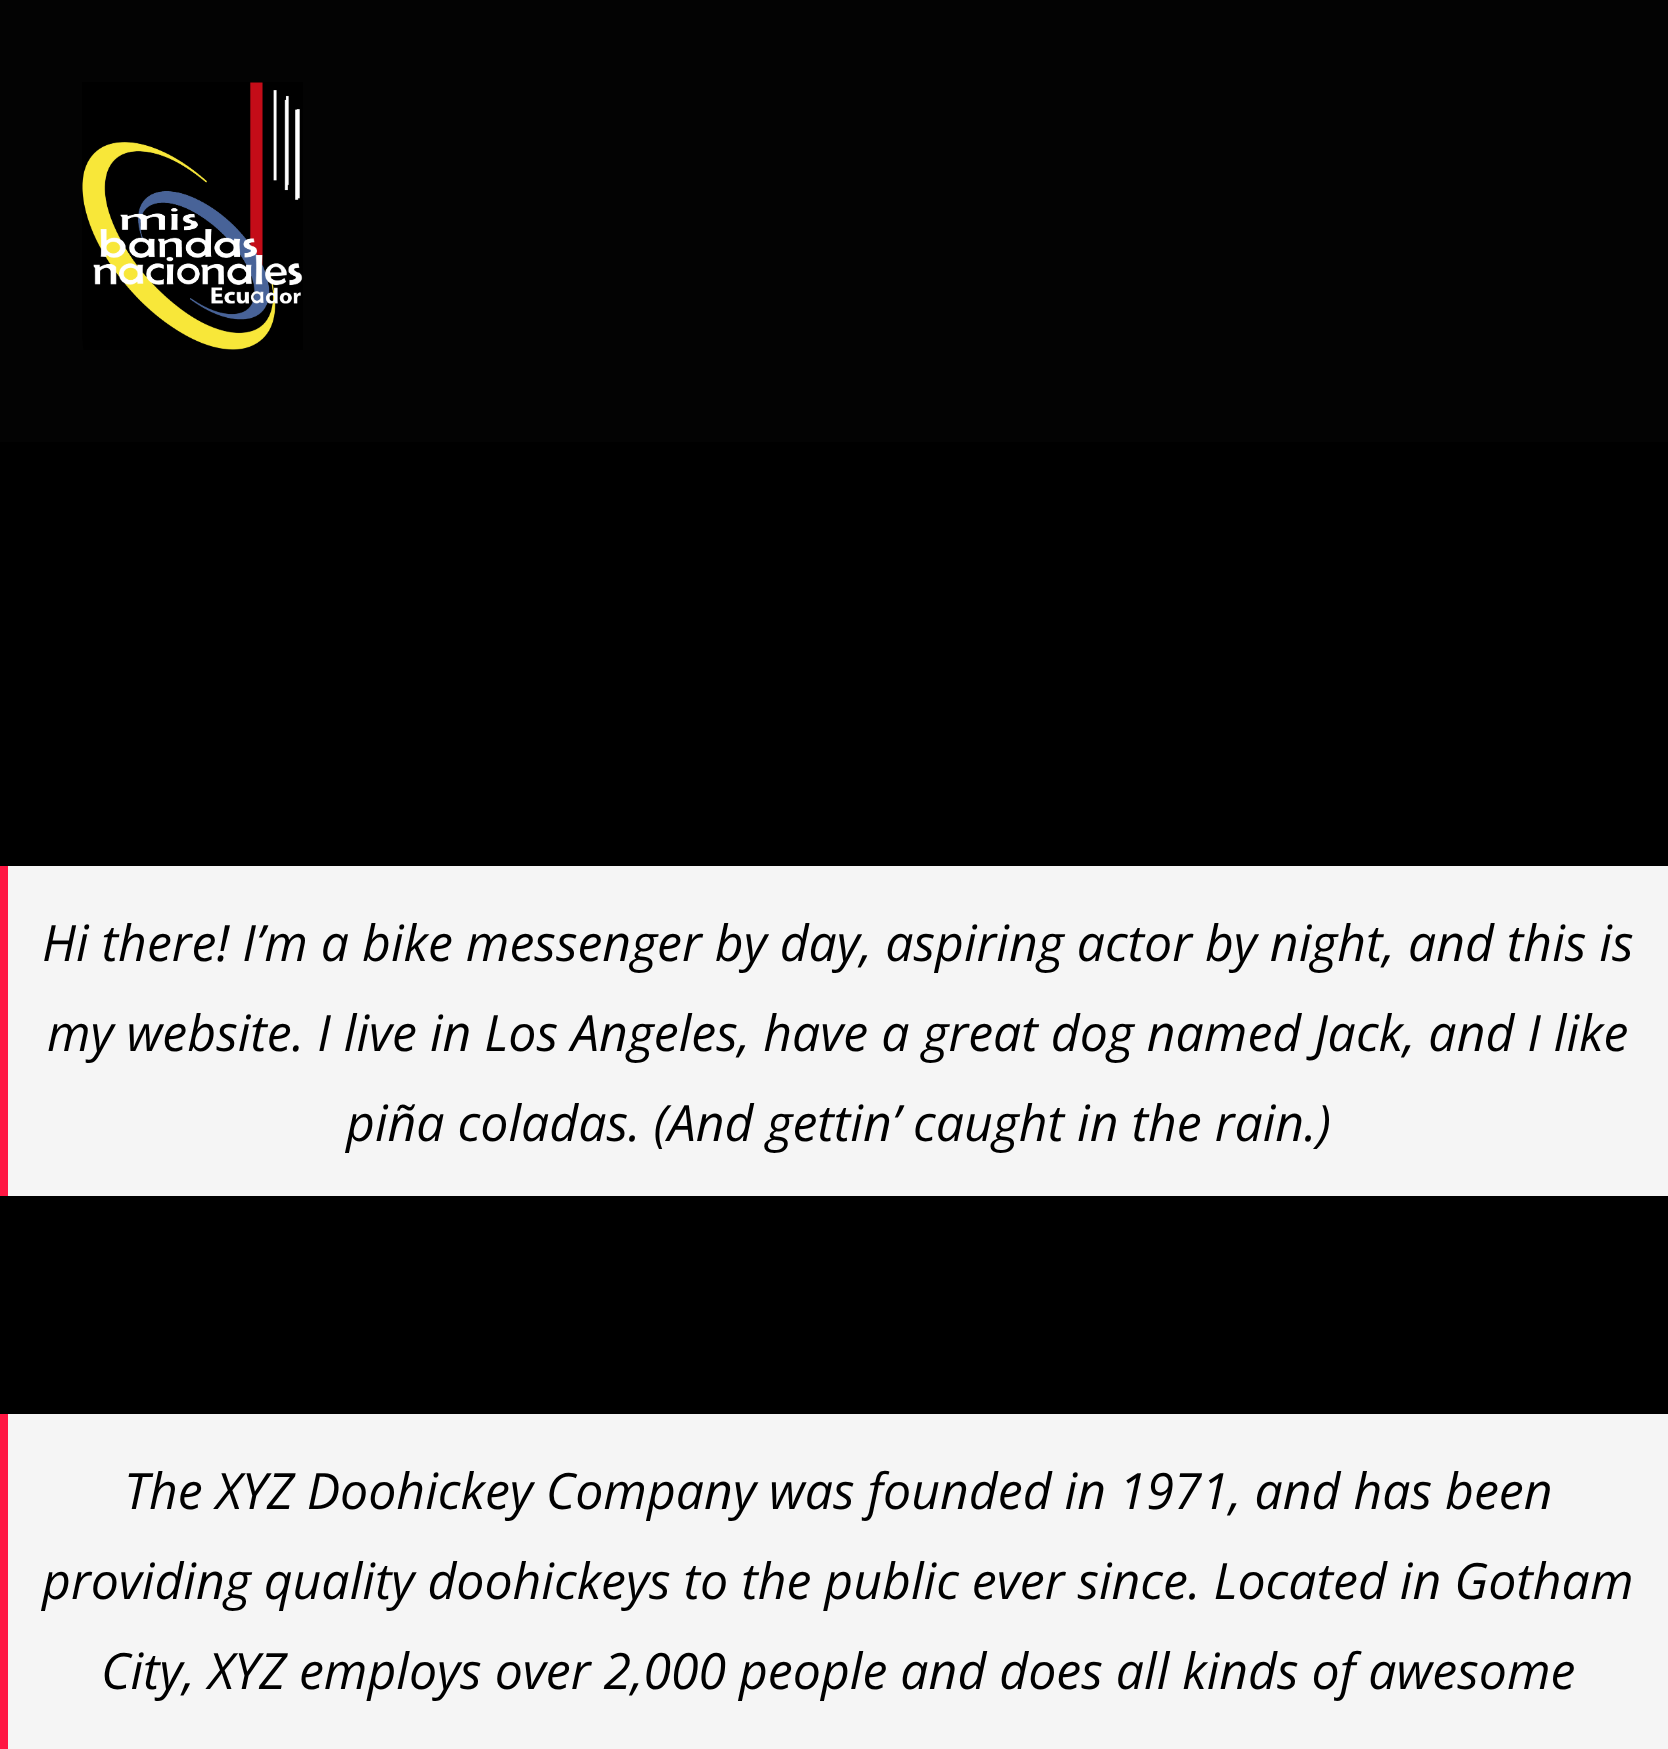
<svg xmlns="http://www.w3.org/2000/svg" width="1668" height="1749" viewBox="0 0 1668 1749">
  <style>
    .t1 { font: italic 50px Open Sans; fill: #000; }
  </style>
  <rect width="100%" height="100%" fill="#000"/>
  <rect x="0" y="0" width="1668" height="442" fill="#030303"/>
  <image x="82" y="82" width="221" height="268" href="images/1.png"/>
  <rect x="8" y="866" width="1660" height="330" fill="#f5f5f5"/>
  <rect x="0" y="866" width="8" height="330" fill="#ff1743"/>
  <text x="42" y="961" class="t1">Hi there! I’m a bike messenger by day, aspiring actor by night, and this is</text>
  <text x="47" y="1051" class="t1">my website. I live in Los Angeles, have a great dog named Jack, and I like</text>
  <text x="346" y="1141" class="t1">piña coladas. (And gettin’ caught in the rain.)</text>
  <rect x="8" y="1414" width="1660" height="335" fill="#f5f5f5"/>
  <rect x="0" y="1414" width="8" height="335" fill="#ff1743"/>
  <text x="124" y="1509" class="t1">The XYZ Doohickey Company was founded in 1971, and has been</text>
  <text x="42" y="1599" class="t1">providing quality doohickeys to the public ever since. Located in Gotham</text>
  <text x="101" y="1689" class="t1">City, XYZ employs over 2,000 people and does all kinds of awesome</text>
</svg>
